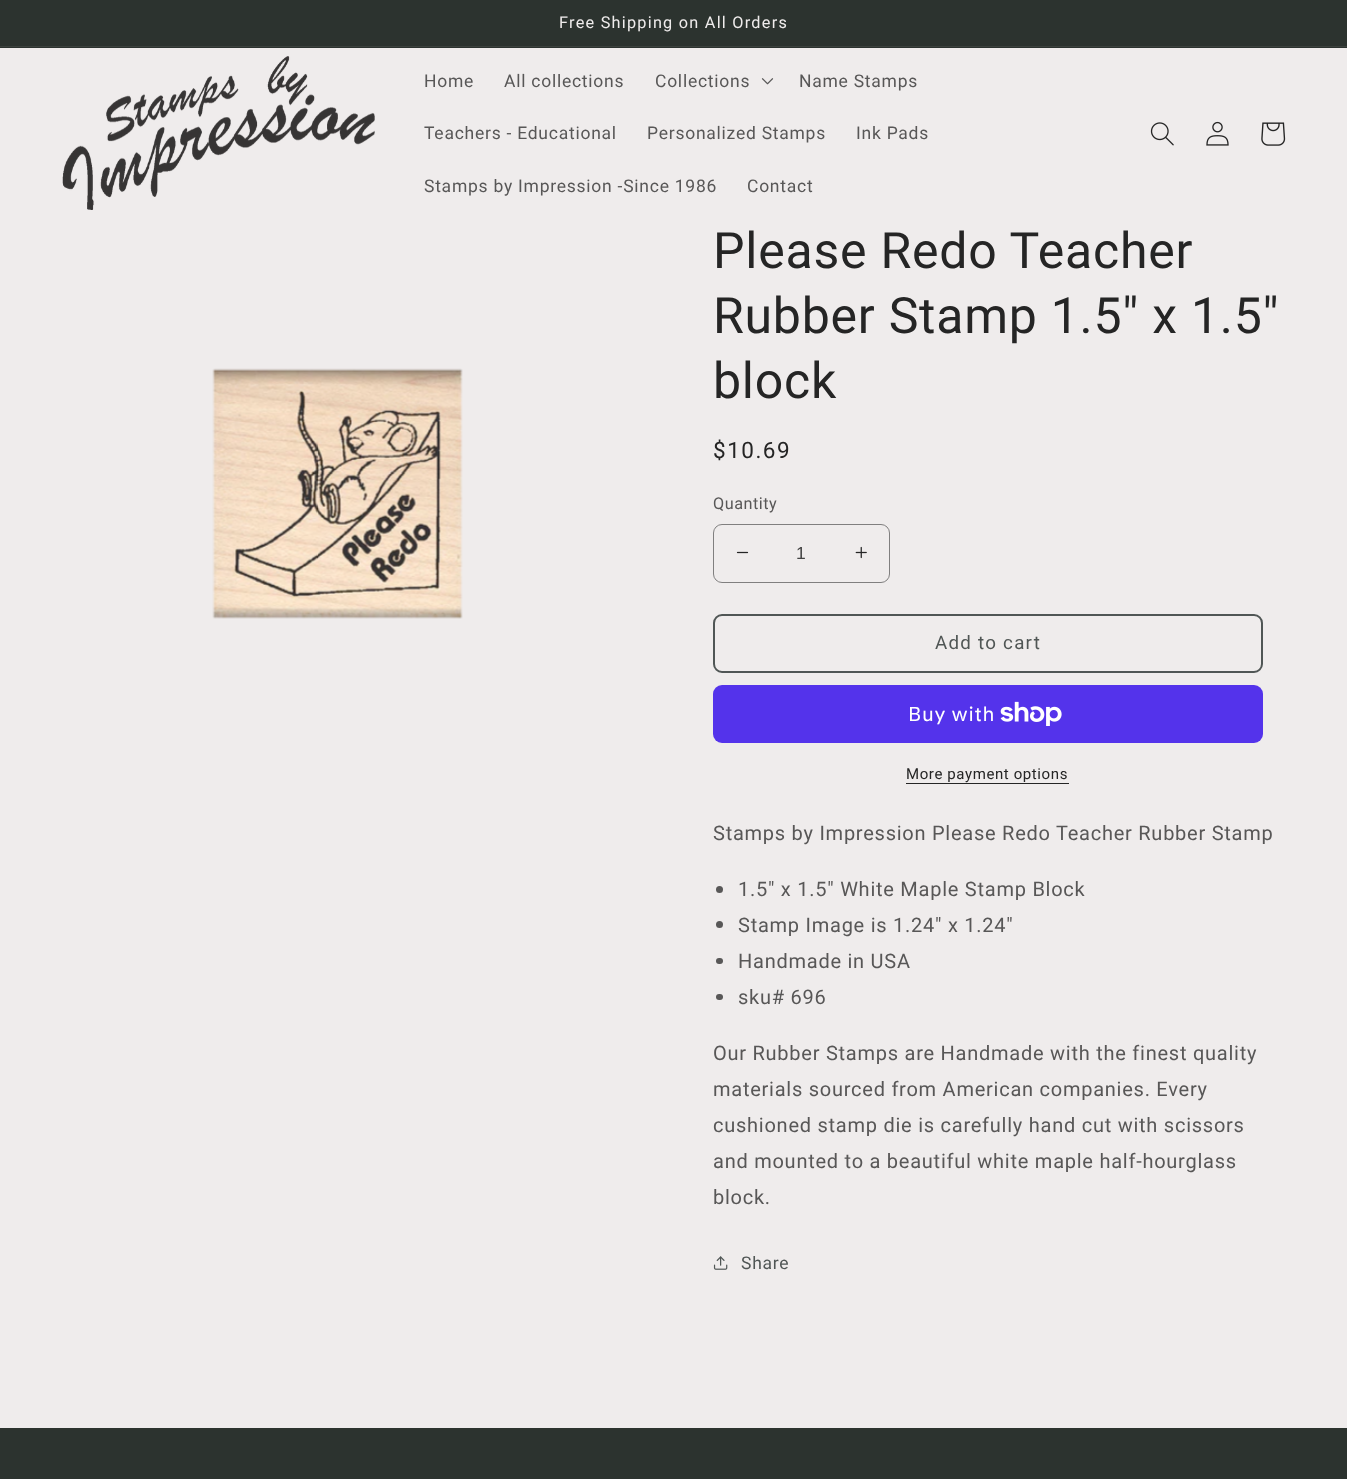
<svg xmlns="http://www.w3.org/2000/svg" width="1347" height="1479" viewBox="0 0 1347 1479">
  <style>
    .t1 { font: 16.25px Roboto; letter-spacing: 1.25px; fill: #efecec; }
    .t2 { font: 17.5px Roboto; letter-spacing: 0.75px; fill: #585757; }
    .t3 { font: 50px Roboto; letter-spacing: 0.75px; fill: #252525; }
    .t4 { font: 22.5px Roboto; letter-spacing: 1.5px; fill: #252525; }
    .t5 { font: 16.25px Roboto; letter-spacing: 0.5px; fill: #585757; }
    .t6 { font: 17.5px Liberation Sans; fill: #434343; }
    .t7 { font: 18.75px Roboto; letter-spacing: 1.25px; fill: #505655; }
    .t8 { font: 20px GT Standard; letter-spacing: 0.75px; fill: #fff; }
    .t9 { font: 15px Roboto; letter-spacing: 0.6px; fill: #252525; }
    .t10 { font: 20px Roboto; letter-spacing: 0.75px; fill: #585757; }
    .t11 { font: 17.5px Roboto; letter-spacing: 0.75px; fill: #505655; }
  </style>
  <rect width="100%" height="100%" fill="#efecec"/>
  <rect x="0" y="0" width="1347" height="48" fill="#2c332f"/>
  <rect x="0" y="46" width="1347" height="1" fill="#3c423e"/>
  <text x="559" y="28" class="t1">Free Shipping on All Orders</text>
  <image x="62" y="56" width="313" height="154" href="images/1.png"/>
  <text x="424" y="87" class="t2">Home</text>
  <text x="504" y="87" class="t2">All collections</text>
  <text x="655" y="87" class="t2">Collections</text>
  <image x="761" y="78" width="13" height="7" href="images/2.png"/>
  <text x="799" y="87" class="t2">Name Stamps</text>
  <text x="424" y="139" class="t2">Teachers - Educational</text>
  <text x="647" y="139" class="t2">Personalized Stamps</text>
  <text x="856" y="139" class="t2">Ink Pads</text>
  <text x="424" y="192" class="t2">Stamps by Impression -Since 1986</text>
  <text x="747" y="192" class="t2">Contact</text>
  <image x="1150" y="122" width="24" height="24" href="images/3.png"/>
  <image x="1206" y="121" width="23" height="25" href="images/4.png"/>
  <image x="1261" y="122" width="25" height="24" href="images/5.png"/>
  <image x="212" y="368" width="251" height="251" href="images/6.png"/>
  <text x="713" y="268" class="t3">Please Redo Teacher</text>
  <text x="713" y="333" class="t3">Rubber Stamp 1.5" x 1.5"</text>
  <text x="713" y="398" class="t3">block</text>
  <text x="713" y="458" class="t4">$10.69</text>
  <text x="713" y="509" class="t5">Quantity</text>
  <image x="736" y="551" width="13" height="3" href="images/7.png"/>
  <image x="855" y="546" width="12" height="13" href="images/8.png"/>
  <rect x="713.5" y="524.5" width="176" height="58" rx="8.5" fill="none" stroke="#807f7f"/>
  <text x="796" y="559" class="t6">1</text>
  <rect x="714" y="615" width="548" height="57" rx="8" fill="none" stroke="#505655" stroke-width="2"/>
  <text x="935" y="649" class="t7">Add to cart</text>
  <rect x="713" y="685" width="550" height="58" rx="9" fill="#5433eb"/>
  <text x="908" y="721" class="t8">Buy with</text>
  <image x="1000" y="701" width="62" height="25" href="images/9.png"/>
  <text x="906" y="779" class="t9">More payment options</text>
  <rect x="906" y="783" width="163" height="1" fill="#252525"/>
  <text x="713" y="840" class="t10">Stamps by Impression Please Redo Teacher Rubber Stamp</text>
  <circle cx="719.5" cy="889.5" r="3.5" fill="#585757"/>
  <text x="738" y="896" class="t10">1.5" x 1.5" White Maple Stamp Block</text>
  <circle cx="719.5" cy="924.5" r="3.5" fill="#585757"/>
  <text x="738" y="932" class="t10">Stamp Image is 1.24" x 1.24"</text>
  <rect x="716" y="958" width="7" height="6" rx="3" fill="#585757"/>
  <text x="738" y="968" class="t10">Handmade in USA</text>
  <rect x="716" y="994" width="7" height="6" rx="3" fill="#585757"/>
  <text x="738" y="1004" class="t10">sku# 696</text>
  <text x="713" y="1060" class="t10">Our Rubber Stamps are Handmade with the finest quality</text>
  <text x="713" y="1096" class="t10">materials sourced from American companies. Every</text>
  <text x="713" y="1132" class="t10">cushioned stamp die is carefully hand cut with scissors</text>
  <text x="713" y="1168" class="t10">and mounted to a beautiful white maple half-hourglass</text>
  <text x="713" y="1204" class="t10">block.</text>
  <image x="713" y="1256" width="15" height="14" href="images/10.png"/>
  <text x="741" y="1269" class="t11">Share</text>
  <rect x="0" y="1428" width="1347" height="51" fill="#2c332f"/>
</svg>
